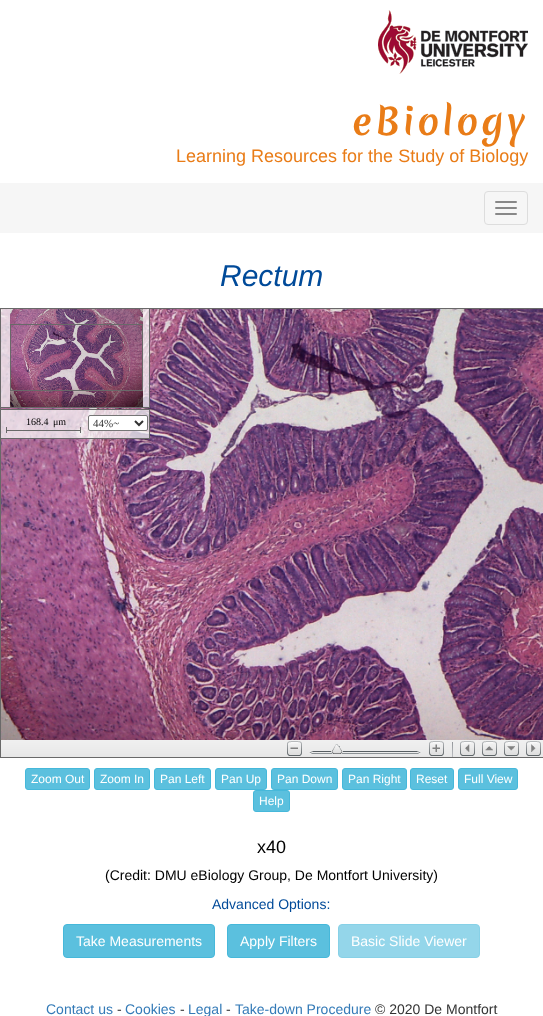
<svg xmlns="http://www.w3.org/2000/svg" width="543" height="1016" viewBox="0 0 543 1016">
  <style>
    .t1 { font: 36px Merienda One; letter-spacing: 3px; fill: #e97c17; }
    .t2 { font: 18px Liberation Sans; fill: #e97c17; }
    .t3 { font: italic 30px Liberation Sans; fill: #004a99; }
    .t4 { font: 10px Liberation Serif; fill: #000; }
    .t5 { font: 11px Liberation Serif; fill: #333; }
    .t6 { font: 12px Liberation Sans; fill: #fff; }
    .t7 { font: 18px Liberation Sans; fill: #000; }
    .t8 { font: 14px Liberation Sans; fill: #000; }
    .t9 { font: 14px Liberation Sans; fill: #004a99; }
    .t10 { font: 14px Liberation Sans; fill: #fff; }
    .t11 { font: 14px Liberation Sans; fill: #337ab7; }
    .t12 { font: 14px Liberation Sans; fill: #333; }
  </style>
  <defs>
    <clipPath id="clip1"><rect x="1" y="309" width="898" height="448"/></clipPath>
  </defs>
  <rect width="100%" height="100%" fill="#fff"/>
  <image x="378" y="10" width="150" height="64" href="images/1.png"/>
  <text x="352" y="135" class="t1">eBiology</text>
  <text x="176" y="162" class="t2">Learning Resources for the Study of Biology</text>
  <rect x="0" y="183" width="543" height="50" fill="#f6f6f6"/>
  <rect x="484.5" y="191.5" width="43" height="33" rx="3.5" fill="none" stroke="#ddd"/>
  <rect x="495" y="201" width="22" height="2" rx="1" fill="#888"/>
  <rect x="495" y="207" width="22" height="2" rx="1" fill="#888"/>
  <rect x="495" y="213" width="22" height="2" rx="1" fill="#888"/>
  <text x="220" y="286" class="t3">Rectum</text>
  <rect x="0.5" y="308.5" width="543" height="449" fill="none" stroke="#696969"/>
  <image x="1" y="309" width="542" height="431" href="images/3.png"/>
  <g clip-path="url(#clip1)">
    <rect x="0.5" y="308.5" width="149" height="99" fill="none" stroke="#696969"/>
  </g>
  <rect x="1" y="309" width="148" height="98" fill="#fbfafabf"/>
  <image x="10" y="309" width="133" height="98" href="images/2.png"/>
  <rect x="10.5" y="324.5" width="132" height="66" fill="none" stroke="#696969"/>
  <g clip-path="url(#clip1)">
    <rect x="0.5" y="409.5" width="149" height="29" fill="none" stroke="#696969"/>
  </g>
  <rect x="1" y="410" width="148" height="28" fill="#fbfafabf"/>
  <text x="26" y="425" class="t4">168.4</text>
  <text x="53" y="425" class="t4">μm</text>
  <rect x="88.5" y="415.5" width="59" height="15" rx="1.5" fill="#fff" stroke="#767676"/>
  <path d="M135 421L139 425L143 421" fill="none" stroke="#333" stroke-width="2"/>
  <text x="93" y="427" class="t5">44%~</text>
  <rect x="6" y="427" width="1" height="6" fill="#696969"/>
  <rect x="80" y="427" width="1" height="6" fill="#696969"/>
  <rect x="6" y="430" width="74" height="1" fill="#696969"/>
  <image x="1" y="740" width="542" height="17" href="images/4.png"/>
  <image x="287" y="741" width="15" height="15" href="images/5.png"/>
  <image x="309" y="751" width="112" height="3" href="images/13.png"/>
  <image x="331" y="744" width="12" height="10" href="images/6.png"/>
  <image x="429" y="741" width="15" height="15" href="images/7.png"/>
  <image x="452" y="742" width="1" height="15" href="images/8.png"/>
  <image x="460" y="741" width="15" height="15" href="images/9.png"/>
  <image x="482" y="741" width="15" height="15" href="images/10.png"/>
  <image x="504" y="741" width="15" height="15" href="images/11.png"/>
  <image x="526" y="741" width="15" height="15" href="images/12.png"/>
  <rect x="25.5" y="768.5" width="64" height="21" rx="2.5" fill="#5bc0de" stroke="#46b8da"/>
  <text x="31" y="783" class="t6">Zoom Out</text>
  <rect x="94.5" y="768.5" width="55" height="21" rx="2.5" fill="#5bc0de" stroke="#46b8da"/>
  <text x="100" y="783" class="t6">Zoom In</text>
  <rect x="154.5" y="768.5" width="56" height="21" rx="2.5" fill="#5bc0de" stroke="#46b8da"/>
  <text x="160" y="783" class="t6">Pan Left</text>
  <rect x="215.5" y="768.5" width="51" height="21" rx="2.5" fill="#5bc0de" stroke="#46b8da"/>
  <text x="221" y="783" class="t6">Pan Up</text>
  <rect x="271.5" y="768.5" width="66" height="21" rx="2.5" fill="#5bc0de" stroke="#46b8da"/>
  <text x="277" y="783" class="t6">Pan Down</text>
  <rect x="342.5" y="768.5" width="64" height="21" rx="2.5" fill="#5bc0de" stroke="#46b8da"/>
  <text x="348" y="783" class="t6">Pan Right</text>
  <rect x="410.5" y="768.5" width="43" height="21" rx="2.5" fill="#5bc0de" stroke="#46b8da"/>
  <text x="416" y="783" class="t6">Reset</text>
  <rect x="458.5" y="768.5" width="59" height="21" rx="2.5" fill="#5bc0de" stroke="#46b8da"/>
  <text x="464" y="783" class="t6">Full View</text>
  <rect x="253.5" y="790.5" width="36" height="21" rx="2.5" fill="#5bc0de" stroke="#46b8da"/>
  <text x="259" y="805" class="t6">Help</text>
  <text x="257" y="853" class="t7">‍x40</text>
  <text x="105" y="880" class="t8">(Credit: DMU eBiology Group, De Montfort University)</text>
  <text x="212" y="909" class="t9">Advanced Options:</text>
  <rect x="63.5" y="924.5" width="151" height="33" rx="3.5" fill="#5bc0de" stroke="#46b8da"/>
  <text x="76" y="946" class="t10">Take Measurements</text>
  <rect x="227.5" y="924.5" width="102" height="33" rx="3.5" fill="#5bc0de" stroke="#46b8da"/>
  <text x="240" y="946" class="t10">Apply Filters</text>
  <rect x="338.5" y="924.5" width="141" height="33" rx="3.5" fill="#94d6ea" stroke="#87d1e7"/>
  <text x="351" y="946" class="t10">Basic Slide Viewer</text>
  <text x="46" y="1014" class="t11">Contact us</text>
  <text x="117" y="1014" class="t12">-</text>
  <text x="125" y="1014" class="t11">Cookies</text>
  <text x="180" y="1014" class="t12">-</text>
  <text x="188" y="1014" class="t11">Legal</text>
  <text x="226" y="1014" class="t12">-</text>
  <text x="235" y="1014" class="t11">Take-down Procedure</text>
  <text x="375" y="1014" class="t12">© 2020 De Montfort</text>
</svg>
